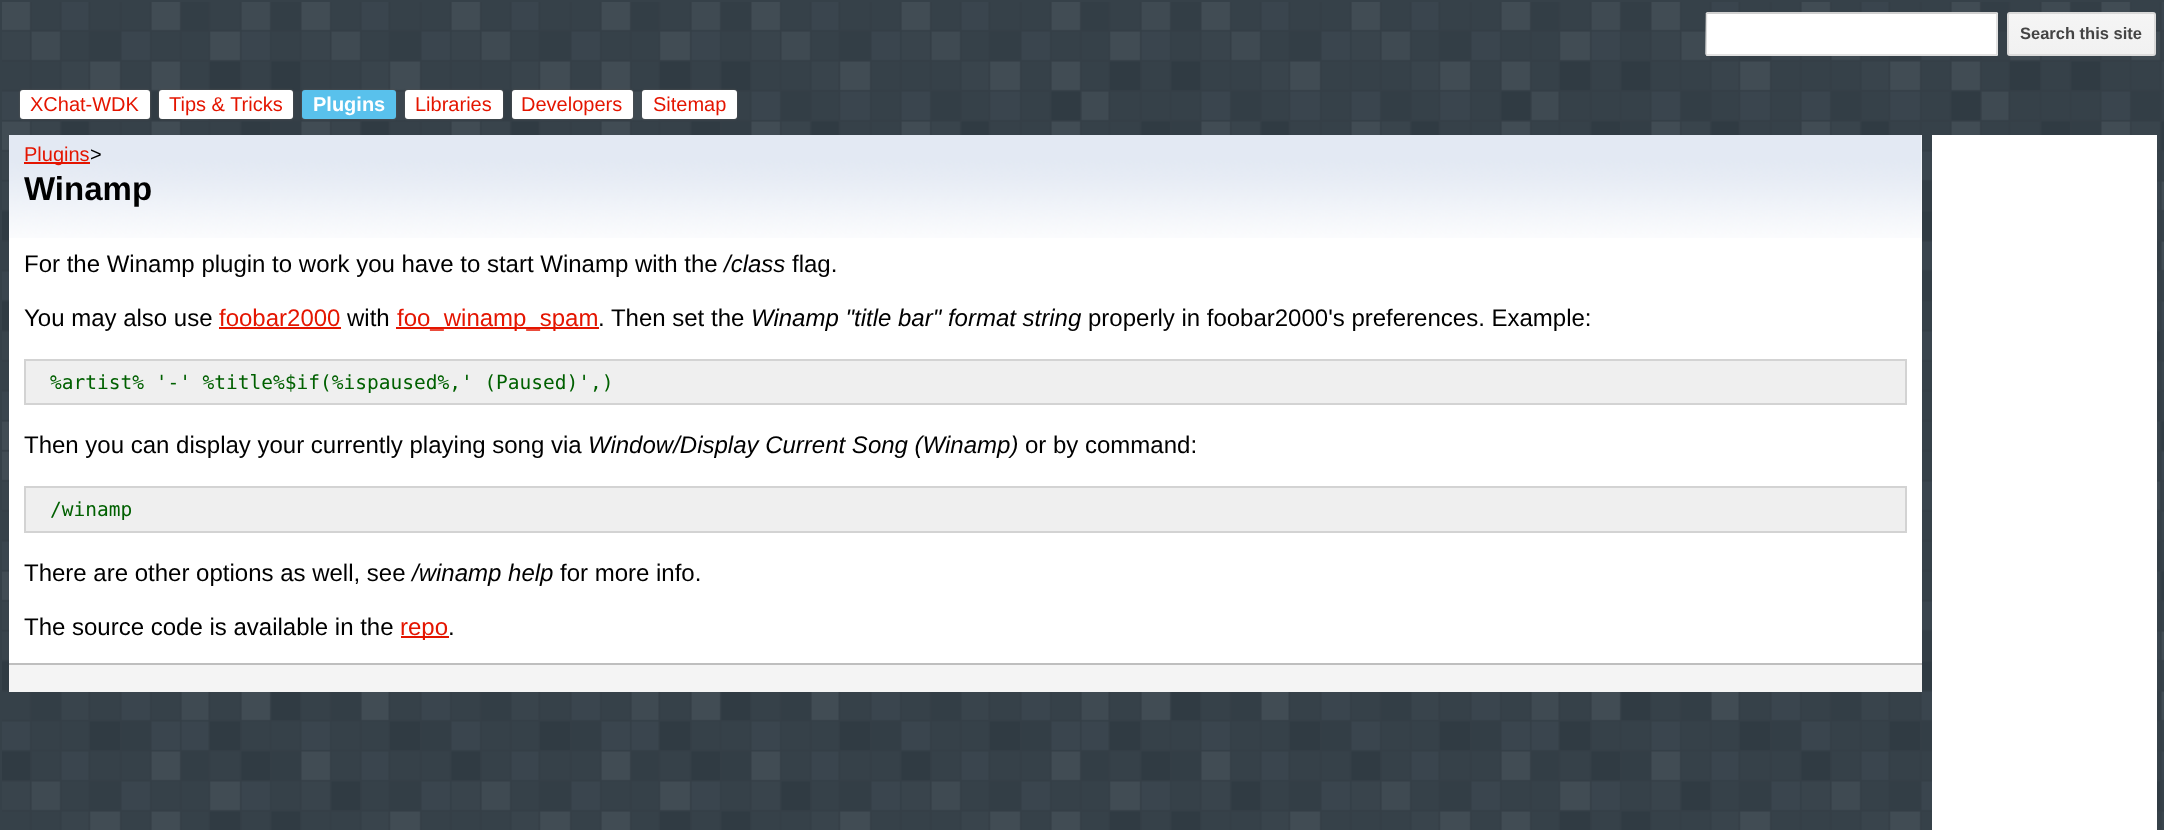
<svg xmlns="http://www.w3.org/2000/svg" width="2164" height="830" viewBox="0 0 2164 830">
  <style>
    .t1 { font: bold 16.5px Liberation Sans; fill: #444; }
    .t2 { font: 20px Liberation Sans; fill: #e41500; }
    .t3 { font: bold 20px Liberation Sans; fill: #fff; }
    .t4 { font: 20px Liberation Sans; fill: #000; }
    .t5 { font: bold 33px Liberation Sans; fill: #000; }
    .t6 { font: 24px Liberation Sans; fill: #000; }
    .t7 { font: italic 24px Liberation Sans; fill: #000; }
    .t8 { font: 24px Liberation Sans; fill: #e41500; }
    .t9 { font: 19.5px DejaVu Sans Mono; fill: #006000; }
  </style>
  <defs>
    <clipPath id="clip1"><rect x="2007" y="12" width="149" height="44" rx="3"/></clipPath>
    <linearGradient id="g1" gradientUnits="userSpaceOnUse" x1="2081" y1="-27" x2="2081" y2="14"><stop offset="0" stop-color="#f5f5f5"/><stop offset="1" stop-color="#f1f1f1"/></linearGradient>
    <linearGradient id="g2" gradientUnits="userSpaceOnUse" x1="2081" y1="13" x2="2081" y2="54"><stop offset="0" stop-color="#f5f5f5"/><stop offset="1" stop-color="#f1f1f1"/></linearGradient>
    <linearGradient id="g3" gradientUnits="userSpaceOnUse" x1="2081" y1="54" x2="2081" y2="95"><stop offset="0" stop-color="#f5f5f5"/><stop offset="1" stop-color="#f1f1f1"/></linearGradient>
  </defs>
  <rect width="100%" height="100%" fill="#364149"/>
  <image x="2" y="2" width="2162" height="828" href="images/1.png"/>
  <rect x="1706" y="12" width="292" height="44" rx="1.5" fill="#fff"/>
  <rect x="1707" y="12" width="290" height="2" fill="#c0c0c0bf"/>
  <path d="M1997 13V54L1996.5 55H1707L1706 54L1706.5 13" fill="none" stroke="#d9d9d9" stroke-width="1.5"/>
  <g clip-path="url(#clip1)">
    <rect x="2007" y="12" width="149" height="2" fill="url(#g1)"/>
    <rect x="2007" y="14" width="149" height="40" fill="url(#g2)"/>
    <rect x="2007" y="54" width="149" height="2" fill="url(#g3)"/>
  </g>
  <rect x="2008" y="13" width="147" height="42" rx="2" fill="none" stroke="#0000001a" stroke-width="2"/>
  <text x="2020" y="39" class="t1">Search this site</text>
  <rect x="20" y="90" width="130" height="29" rx="3" fill="#555" filter="blur(1px)"/>
  <rect x="20" y="90" width="130" height="29" rx="3" fill="#fff"/>
  <text x="30" y="111" class="t2">XChat-WDK</text>
  <rect x="159" y="90" width="134" height="29" rx="3" fill="#555" filter="blur(1px)"/>
  <rect x="159" y="90" width="134" height="29" rx="3" fill="#fff"/>
  <text x="169" y="111" class="t2">Tips &amp; Tricks</text>
  <rect x="302" y="90" width="94" height="29" rx="3" fill="#555" filter="blur(1px)"/>
  <rect x="302" y="90" width="94" height="29" rx="3" fill="#59c1ec"/>
  <text x="313" y="111" class="t3">Plugins</text>
  <rect x="405" y="90" width="98" height="29" rx="3" fill="#555" filter="blur(1px)"/>
  <rect x="405" y="90" width="98" height="29" rx="3" fill="#fff"/>
  <text x="415" y="111" class="t2">Libraries</text>
  <rect x="512" y="90" width="121" height="29" rx="3" fill="#555" filter="blur(1px)"/>
  <rect x="512" y="90" width="121" height="29" rx="3" fill="#fff"/>
  <text x="521" y="111" class="t2">Developers</text>
  <rect x="642" y="90" width="95" height="29" rx="3" fill="#555" filter="blur(1px)"/>
  <rect x="642" y="90" width="95" height="29" rx="3" fill="#fff"/>
  <text x="653" y="111" class="t2">Sitemap</text>
  <rect x="9" y="135" width="1913" height="528" fill="#fff"/>
  <image x="9" y="135" width="1913" height="103" href="images/2.png"/>
  <rect x="24" y="162" width="66" height="2" fill="#e41500"/>
  <text x="24" y="161" class="t2">Plugins</text>
  <text x="90" y="161" class="t4"> &gt; </text>
  <text x="24" y="200" class="t5">Winamp</text>
  <text x="24" y="272" class="t6">For the Winamp plugin to work you have to start Winamp with the</text>
  <text x="724" y="272" class="t7">/class</text>
  <text x="792" y="272" class="t6">flag.</text>
  <text x="24" y="326" class="t6">You may also use</text>
  <text x="219" y="326" class="t8">foobar2000</text>
  <rect x="219" y="327" width="122" height="2" fill="#e41500"/>
  <text x="347" y="326" class="t6">with</text>
  <rect x="396" y="327" width="203" height="2" fill="#e41500"/>
  <text x="397" y="326" class="t8">foo_winamp_spam</text>
  <text x="598" y="326" class="t6">. Then set the</text>
  <text x="751" y="326" class="t7">Winamp "title bar" format string</text>
  <text x="1088" y="326" class="t6">properly in foobar2000's preferences. Example:</text>
  <rect x="25" y="360" width="1881" height="44" fill="#efefef" stroke="#d3d3d3" stroke-width="2"/>
  <text x="50" y="389" class="t9">%artist% '-' %title%$if(%ispaused%,' (Paused)',)</text>
  <text x="24" y="453" class="t6">Then you can display your currently playing song via</text>
  <text x="588" y="453" class="t7">Window/Display Current Song (Winamp)</text>
  <text x="1025" y="453" class="t6">or by command:</text>
  <rect x="25" y="487" width="1881" height="45" fill="#efefef" stroke="#d3d3d3" stroke-width="2"/>
  <text x="50" y="516" class="t9">/winamp</text>
  <text x="24" y="581" class="t6">There are other options as well, see</text>
  <text x="412" y="581" class="t7">/winamp help</text>
  <text x="560" y="581" class="t6">for more info.</text>
  <text x="24" y="635" class="t6">The source code is available in the</text>
  <rect x="401" y="636" width="48" height="2" fill="#e41500"/>
  <text x="400" y="635" class="t8">repo</text>
  <text x="448" y="635" class="t6">.</text>
  <rect x="9" y="665" width="1913" height="27" fill="#f4f4f4"/>
  <rect x="9" y="663" width="1913" height="2" fill="#bebebe"/>
  <rect x="1932" y="135" width="225" height="695" fill="#fff"/>
</svg>
